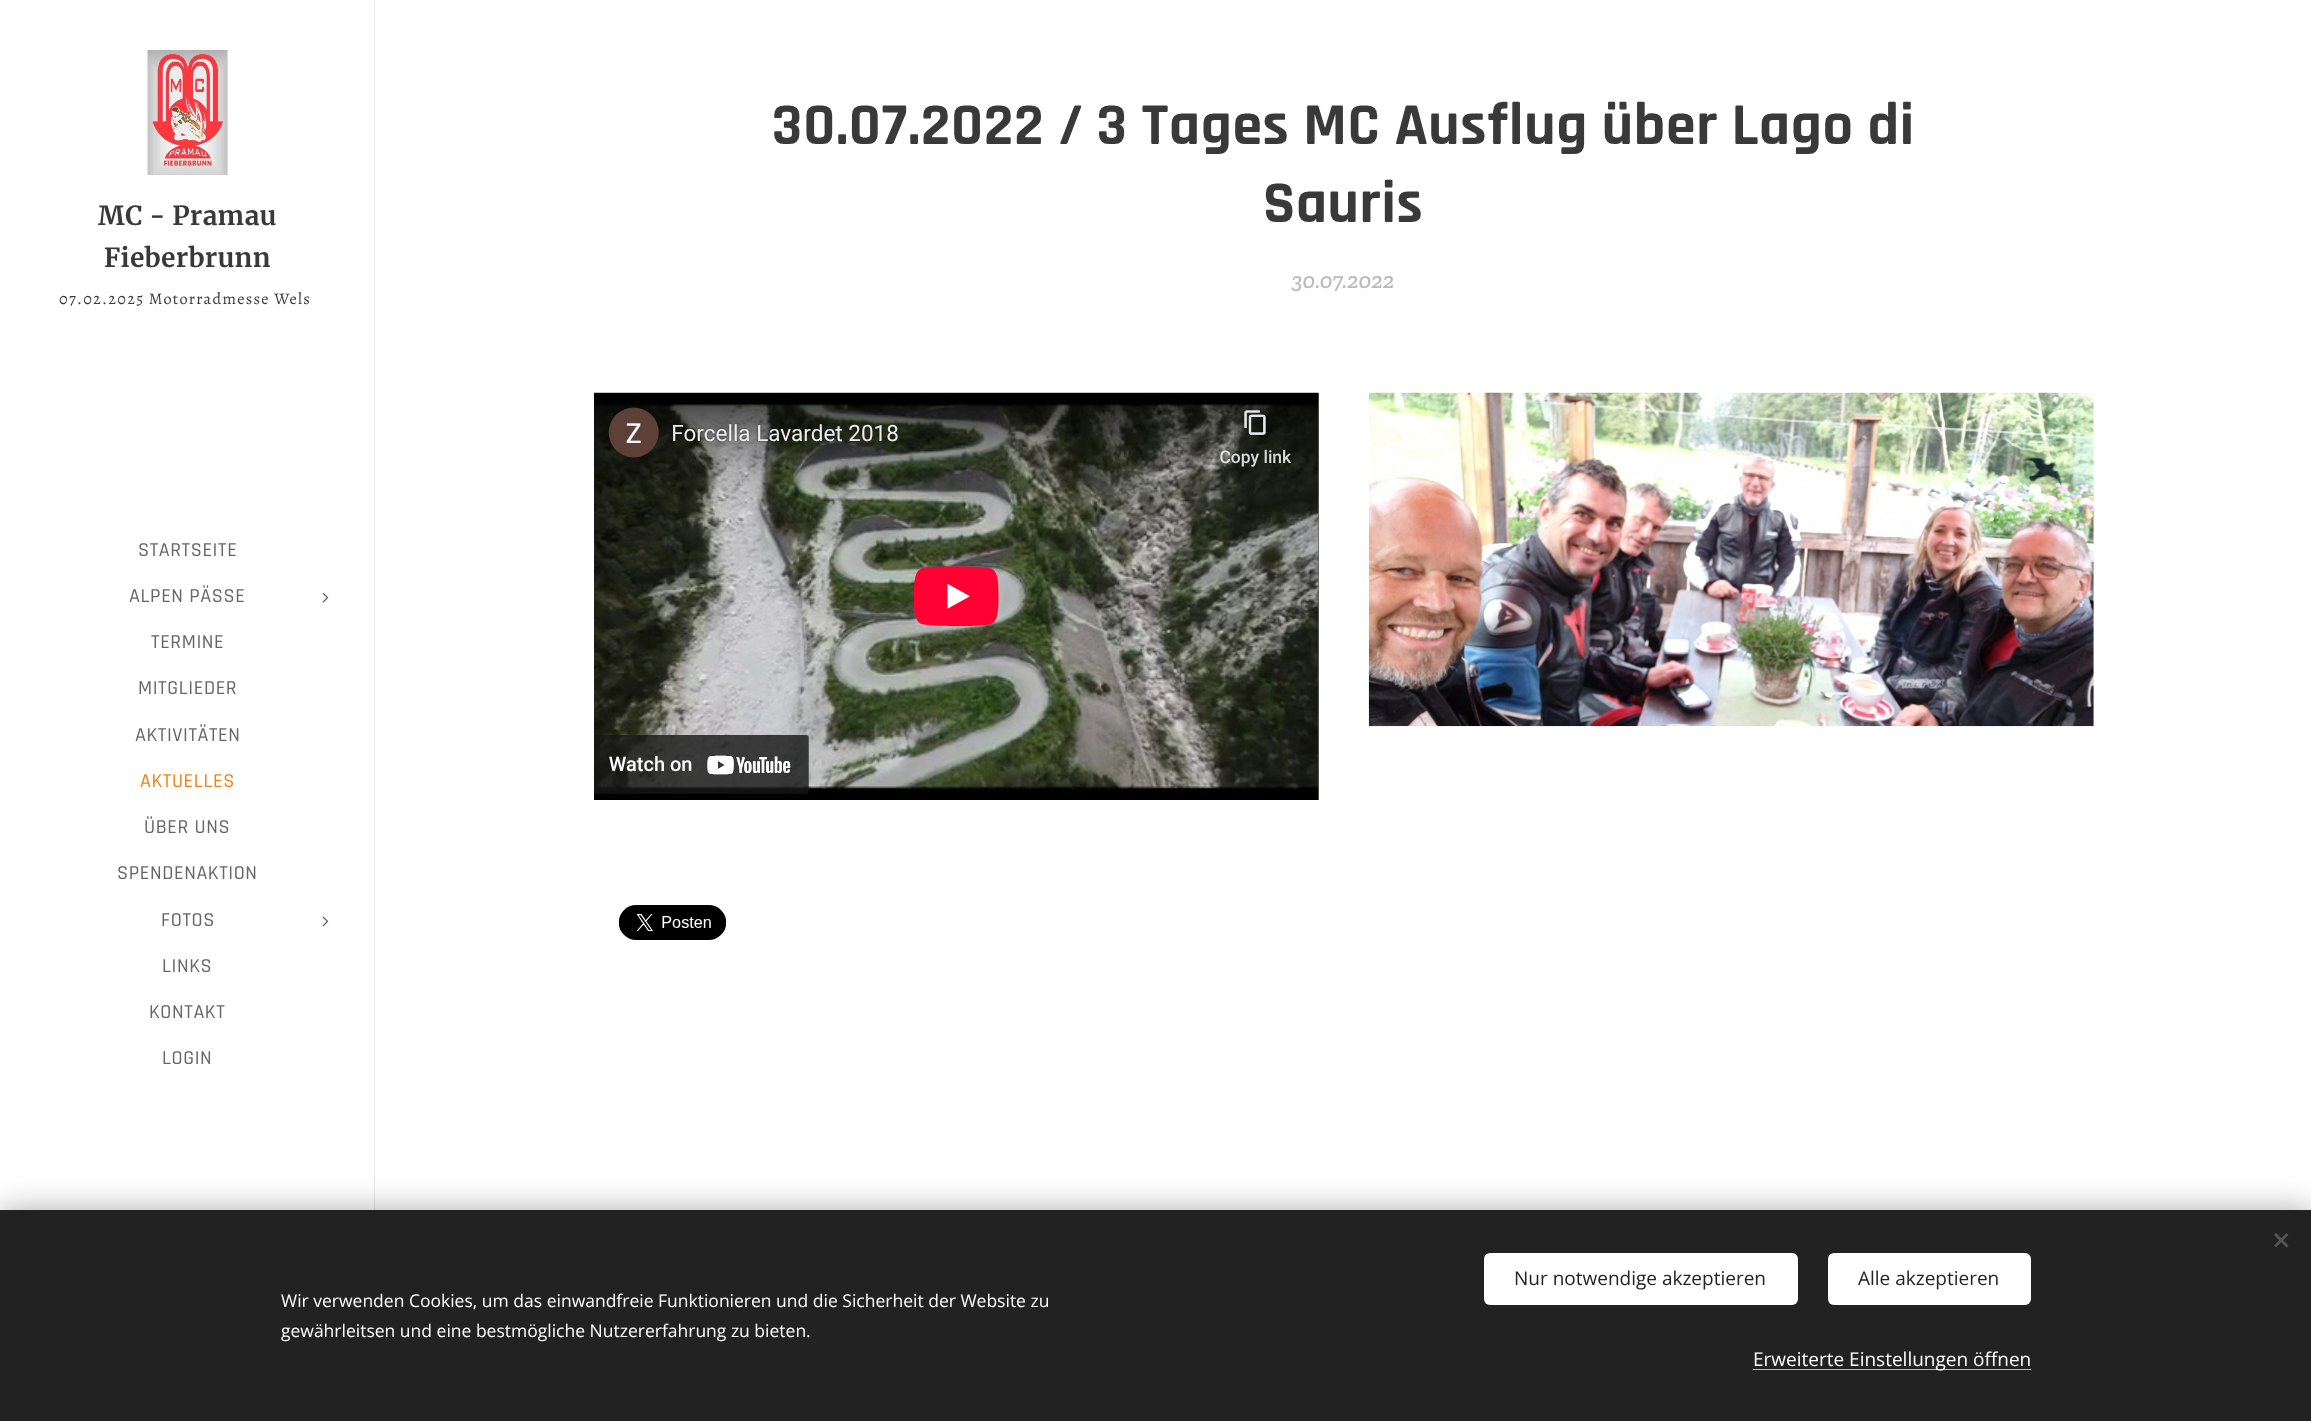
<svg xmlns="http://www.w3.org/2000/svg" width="2311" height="1421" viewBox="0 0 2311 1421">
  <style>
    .t1 { font: bold 26.25px Merriweather; letter-spacing: 0.25px; fill: #393939; }
    .t2 { font: 16.25px Alegreya; letter-spacing: 1.25px; fill: #393939; }
    .t3 { font: 500 20px Rajdhani; letter-spacing: 0.6px; fill: #666; }
    .t4 { font: 500 20px Rajdhani; letter-spacing: 0.6px; fill: #f57f17; }
    .t5 { font: bold 60px Rajdhani; letter-spacing: 0.6px; fill: #393939; }
    .t6 { font: italic 500 22.5px Zilla Slab; fill: #bababa; }
    .t7 { font: 17.5px Open Sans; fill: #fff; }
    .t8 { font: 19px Open Sans; fill: #222; }
    .t9 { font: 19px Open Sans; fill: #fff; }
  </style>
  <rect width="100%" height="100%" fill="#fff"/>
  <image x="147" y="50" width="81" height="125" href="images/1.png"/>
  <text x="98" y="225" class="t1">MC - Pramau</text>
  <text x="104" y="267" class="t1">Fieberbrunn</text>
  <text x="59" y="304" class="t2">07.02.2025 Motorradmesse Wels</text>
  <text x="138" y="556" class="t3">STARTSEITE</text>
  <text x="129" y="602" class="t3">ALPEN PÄSSE</text>
  <image x="322" y="592" width="7" height="11" href="images/2.png"/>
  <text x="151" y="648" class="t3">TERMINE</text>
  <text x="138" y="694" class="t3">MITGLIEDER</text>
  <text x="135" y="741" class="t3">AKTIVITÄTEN</text>
  <text x="140" y="787" class="t4">AKTUELLES</text>
  <text x="144" y="833" class="t3">ÜBER UNS</text>
  <text x="117" y="879" class="t3">SPENDENAKTION</text>
  <text x="161" y="926" class="t3">FOTOS</text>
  <image x="322" y="916" width="7" height="11" href="images/3.png"/>
  <text x="162" y="972" class="t3">LINKS</text>
  <text x="149" y="1018" class="t3">KONTAKT</text>
  <text x="162" y="1064" class="t3">LOGIN</text>
  <rect x="374" y="0" width="1" height="1210" fill="#e8e8e8"/>
  <text x="772" y="144" class="t5">30.07.2022 / 3 Tages MC Ausflug über Lago di</text>
  <text x="1263" y="222" class="t5">Sauris</text>
  <text x="1291" y="288" class="t6">30.07.2022</text>
  <image x="594" y="392" width="725" height="408" href="images/4.png"/>
  <image x="1368" y="392" width="726" height="335" href="images/5.png"/>
  <image x="618" y="905" width="109" height="35" href="images/6.png"/>
  <rect x="0" y="1210" width="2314" height="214" fill="#00000054" filter="blur(15.5px)"/>
  <rect x="0" y="1210" width="2311" height="211" fill="#222"/>
  <path d="M2274 1245.5L2286.5 1233L2288.5 1235L2276 1247.5Z" fill="#555"/>
  <path d="M2276 1233L2288.5 1245.5L2286.5 1247.5L2274 1235Z" fill="#555"/>
  <text x="281" y="1307" class="t7">Wir verwenden Cookies, um das einwandfreie Funktionieren und die Sicherheit der Website zu</text>
  <text x="281" y="1337" class="t7">gewährleitsen und eine bestmögliche Nutzererfahrung zu bieten.</text>
  <rect x="1484" y="1253" width="314" height="52" rx="6" fill="#fff"/>
  <text x="1514" y="1285" class="t8">Nur notwendige akzeptieren</text>
  <rect x="1828" y="1253" width="203" height="52" rx="6" fill="#fff"/>
  <text x="1858" y="1285" class="t8">Alle akzeptieren</text>
  <rect x="1753" y="1369" width="278" height="1" fill="#bdbdbd"/>
  <text x="1753" y="1366" class="t9">Erweiterte Einstellungen öffnen</text>
</svg>
